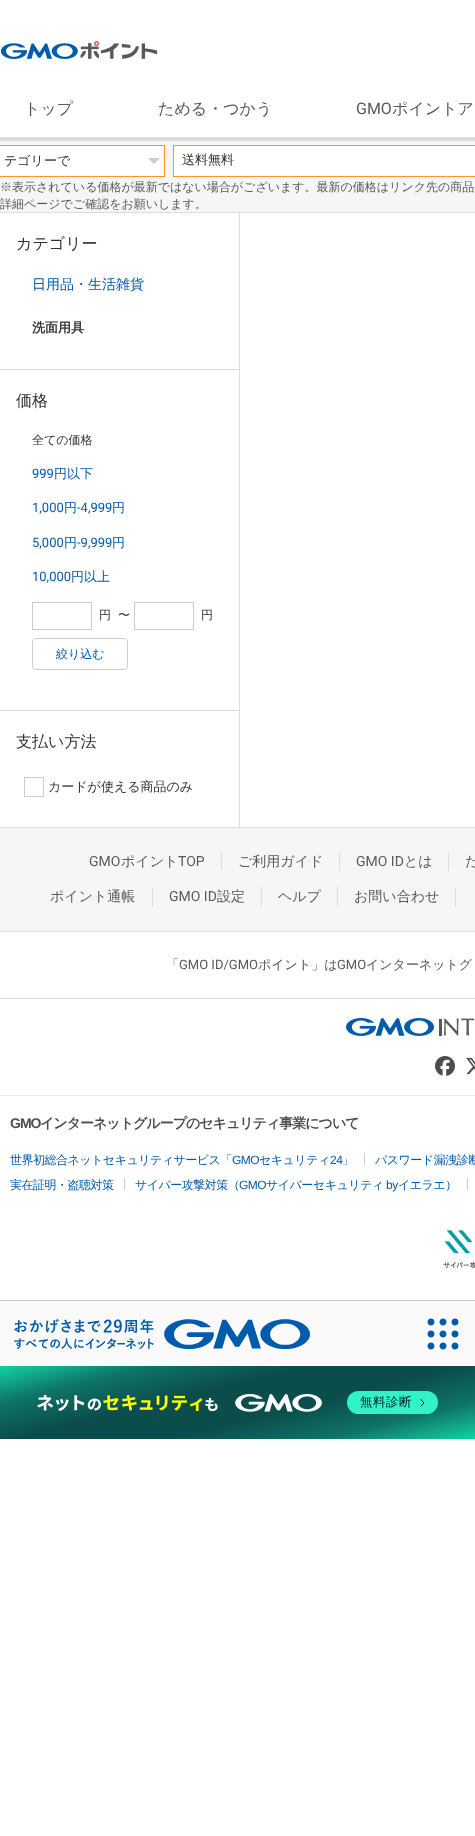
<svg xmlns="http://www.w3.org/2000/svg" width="475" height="1836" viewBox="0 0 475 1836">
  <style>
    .t1 { font: 500 16px WenQuanYi Zen Hei; fill: #5a5858; }
    .t2 { font: 16px Roboto; fill: #5a5858; }
    .t3 { font: 500 13px WenQuanYi Zen Hei; fill: #323232; }
    .t4 { font: 500 12px WenQuanYi Zen Hei; fill: #5a5858; }
    .t5 { font: 500 16px WenQuanYi Zen Hei; fill: #323232; }
    .t6 { font: 500 14px WenQuanYi Zen Hei; fill: #005bac; }
    .t7 { font: bold 13px WenQuanYi Zen Hei; fill: #323232; }
    .t8 { font: 500 12px WenQuanYi Zen Hei; fill: #323232; }
    .t9 { font: 13px Roboto; fill: #005bac; }
    .t10 { font: 500 13px WenQuanYi Zen Hei; fill: #005bac; }
    .t11 { font: 500 12px WenQuanYi Zen Hei; fill: #005bac; }
    .t12 { font: 14px Roboto; fill: #5a5858; }
    .t13 { font: 500 14px WenQuanYi Zen Hei; fill: #5a5858; }
    .t14 { font: 500 13px WenQuanYi Zen Hei; fill: #5a5858; }
    .t15 { font: 13px Roboto; fill: #5a5858; }
    .t16 { font: bold 14px Liberation Sans; letter-spacing: -1px; fill: #4d4d4d; }
    .t17 { font: bold 14px WenQuanYi Zen Hei; letter-spacing: -1px; fill: #4d4d4d; }
    .t18 { font: 500 12px WenQuanYi Zen Hei; letter-spacing: -0.5px; fill: #005bac; }
    .t19 { font: 12px Liberation Sans; letter-spacing: -0.5px; fill: #005bac; }
    .t20 { font: 500 12.5px WenQuanYi Zen Hei; letter-spacing: 0.5px; fill: #021725; }
  </style>
  <defs>
    <linearGradient id="g1" gradientUnits="userSpaceOnUse" x1="215" y1="1312" x2="260" y2="1493"><stop offset="0" stop-color="#13d4a5"/><stop offset="0.2" stop-color="#0e7365"/><stop offset="0.4" stop-color="#0b4d4b"/><stop offset="0.6" stop-color="#0b4d4b"/><stop offset="0.8" stop-color="#0e7365"/><stop offset="1" stop-color="#13d4a5"/></linearGradient>
  </defs>
  <rect width="100%" height="100%" fill="#fff"/>
  <image x="0" y="41" width="158" height="18" href="images/1.png"/>
  <text x="24" y="114" class="t1">トップ</text>
  <text x="158" y="114" class="t1">ためる・つかう</text>
  <text x="356" y="114" class="t2">GMO</text>
  <text x="392" y="114" class="t1">ポイントア</text>
  <rect x="0" y="137" width="475" height="4" fill="#ddd"/>
  <rect x="0" y="141" width="475" height="71" fill="#f6f6f6"/>
  <rect x="0" y="212" width="475" height="1" fill="#ddd"/>
  <rect x="-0.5" y="145.5" width="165" height="31" fill="none" stroke="#ff9620"/>
  <rect x="0" y="146" width="164" height="30" fill="#fff"/>
  <text x="4" y="165" class="t3">テゴリーで</text>
  <path d="M148 158H160L154 164Z" fill="#ccc"/>
  <rect x="173.5" y="145.5" width="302" height="31" fill="none" stroke="#ff9620"/>
  <rect x="174" y="146" width="301" height="30" fill="#fff"/>
  <text x="182" y="164" class="t3">送料無料</text>
  <text x="0" y="191" class="t4">※表示されている価格が最新ではない場合がございます。最新の価格はリンク先の商品</text>
  <text x="0" y="208" class="t4">詳細ページでご確認をお願いします。</text>
  <rect x="239" y="213" width="1" height="614" fill="#ddd"/>
  <rect x="0" y="369" width="239" height="1" fill="#ddd"/>
  <text x="16" y="249" class="t5">カテゴリー</text>
  <text x="32" y="289" class="t6">日用品・生活雑貨</text>
  <text x="32" y="332" class="t7">洗面用具</text>
  <rect x="0" y="710" width="239" height="1" fill="#ddd"/>
  <text x="16" y="406" class="t5">価格</text>
  <text x="32" y="444" class="t8">全ての価格</text>
  <text x="32" y="478" class="t9">999</text>
  <text x="54" y="478" class="t10">円以下</text>
  <text x="32" y="512" class="t9">1,000</text>
  <text x="64" y="512" class="t10">円</text>
  <text x="77" y="512" class="t9">-4,999</text>
  <text x="112" y="512" class="t10">円</text>
  <text x="32" y="547" class="t9">5,000</text>
  <text x="64" y="547" class="t10">円</text>
  <text x="77" y="547" class="t9">-9,999</text>
  <text x="112" y="547" class="t10">円</text>
  <text x="32" y="581" class="t9">10,000</text>
  <text x="71" y="581" class="t10">円以上</text>
  <rect x="32.5" y="602.5" width="59" height="27" fill="none" stroke="#ccc"/>
  <text x="99" y="619" class="t8">円</text>
  <text x="118" y="619" class="t8">〜</text>
  <rect x="134.5" y="602.5" width="59" height="27" fill="none" stroke="#ccc"/>
  <text x="201" y="619" class="t8">円</text>
  <rect x="32.5" y="638.5" width="95" height="31" rx="3.5" fill="none" stroke="#ccc"/>
  <text x="56" y="658" class="t11">絞り込む</text>
  <text x="16" y="747" class="t5">支払い方法</text>
  <rect x="24.5" y="777.5" width="19" height="19" fill="none" stroke="#ccc"/>
  <text x="48" y="791" class="t3">カードが使える商品のみ</text>
  <rect x="0" y="827" width="475" height="1" fill="#ddd"/>
  <rect x="0" y="828" width="475" height="103" fill="#f6f6f6"/>
  <text x="89" y="866" class="t12">GMO</text>
  <text x="121" y="866" class="t13">ポイント</text>
  <text x="178" y="866" class="t12">TOP</text>
  <rect x="221" y="852" width="1" height="19" fill="#ddd"/>
  <text x="238" y="866" class="t13">ご利用ガイド</text>
  <rect x="339" y="852" width="1" height="19" fill="#ddd"/>
  <text x="356" y="866" class="t12">GMO ID</text>
  <text x="404" y="866" class="t13">とは</text>
  <rect x="448" y="852" width="1" height="19" fill="#ddd"/>
  <text x="465" y="866" class="t13">た</text>
  <text x="50" y="901" class="t13">ポイント通帳</text>
  <rect x="152" y="887" width="1" height="20" fill="#ddd"/>
  <text x="169" y="901" class="t12">GMO ID</text>
  <text x="217" y="901" class="t13">設定</text>
  <rect x="261" y="887" width="1" height="20" fill="#ddd"/>
  <text x="278" y="901" class="t13">ヘルプ</text>
  <rect x="337" y="887" width="1" height="20" fill="#ddd"/>
  <text x="354" y="901" class="t13">お問い合わせ</text>
  <rect x="455" y="887" width="1" height="20" fill="#ddd"/>
  <rect x="0" y="931" width="475" height="1" fill="#ddd"/>
  <rect x="0" y="998" width="475" height="1" fill="#ddd"/>
  <text x="166" y="969" class="t14">「</text>
  <text x="179" y="969" class="t15">GMO ID/GMO</text>
  <text x="258" y="969" class="t14">ポイント」は</text>
  <text x="337" y="969" class="t15">GMO</text>
  <text x="366" y="969" class="t14">インターネットグ</text>
  <image x="346" y="1018" width="128" height="18" href="images/2.png"/>
  <image x="435" y="1056" width="20" height="20" href="images/3.png"/>
  <image x="466" y="1057" width="9" height="18" href="images/4.png"/>
  <rect x="0" y="1095" width="475" height="1" fill="#eaeaea"/>
  <text x="10" y="1128" class="t16">GMO</text>
  <text x="40" y="1128" class="t17">インターネットグループのセキュリティ事業について</text>
  <text x="10" y="1164" class="t18">世界初総合ネットセキュリティサービス「</text>
  <text x="232" y="1164" class="t19">GMO</text>
  <text x="259" y="1164" class="t18">セキュリティ</text>
  <text x="330" y="1164" class="t19">24</text>
  <text x="342" y="1164" class="t18">」</text>
  <rect x="364" y="1153" width="1" height="12" fill="#ccc"/>
  <text x="375" y="1164" class="t18">パスワード漏洩診断</text>
  <text x="10" y="1189" class="t18">実在証明・盗聴対策</text>
  <rect x="124" y="1178" width="1" height="12" fill="#ccc"/>
  <text x="135" y="1189" class="t18">サイバー攻撃対策（</text>
  <text x="239" y="1189" class="t19">GMO</text>
  <text x="266" y="1189" class="t18">サイバーセキュリティ</text>
  <text x="386" y="1189" class="t19">by</text>
  <text x="398" y="1189" class="t18">イエラエ）</text>
  <rect x="467" y="1178" width="1" height="12" fill="#ccc"/>
  <image x="443" y="1230" width="32" height="39" href="images/5.png"/>
  <rect x="0" y="1301" width="475" height="65" fill="#fafafa"/>
  <rect x="0" y="1300" width="475" height="1" fill="#c8c8c8"/>
  <image x="14" y="1319" width="296" height="30" href="images/6.png"/>
  <image x="427" y="1318" width="32" height="32" href="images/7.png"/>
  <rect x="0" y="1366" width="475" height="73" fill="url(#g1)"/>
  <image x="37" y="1394" width="285" height="18" href="images/8.png"/>
  <rect x="347" y="1391" width="91" height="23" rx="11.5" fill="#30f4c5"/>
  <text x="360" y="1406" class="t20">無料診断</text>
  <path d="M421 1399.5L424 1403L421 1406" fill="none" stroke="#021725" stroke-linecap="round" stroke-linejoin="round"/>
</svg>
